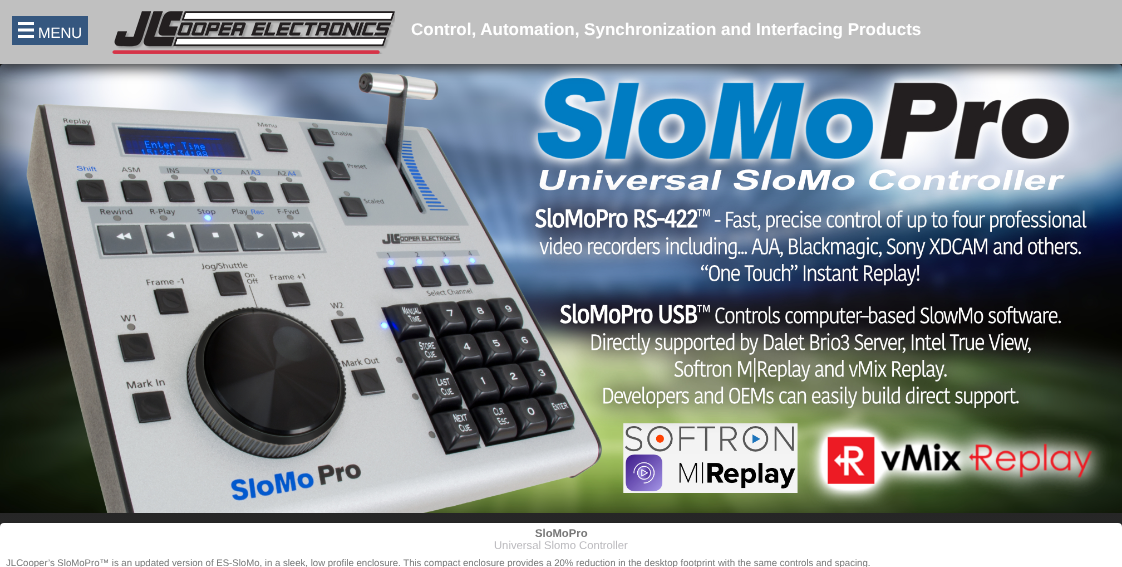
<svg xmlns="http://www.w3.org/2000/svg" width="1122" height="567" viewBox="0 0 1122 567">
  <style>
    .t1 { font: 15px Liberation Sans; fill: #fff; }
    .t2 { font: bold 17px Liberation Sans; fill: #fff; }
    .t3 { font: bold 11.25px Liberation Sans; fill: #777; }
    .t4 { font: 11.25px Liberation Sans; fill: #bbbabe; }
    .t5 { font: 9.6px Liberation Sans; fill: #777; }
  </style>
  <defs>
    <linearGradient id="g1" gradientUnits="userSpaceOnUse" x1="561" y1="0" x2="561" y2="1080"><stop offset="0" stop-color="#000"/><stop offset="1" stop-color="#505050"/></linearGradient>
  </defs>
  <rect width="100%" height="100%" fill="#fff"/>
  <rect x="0" y="64" width="1122" height="463" fill="url(#g1)"/>
  <image x="0" y="64" width="1122" height="449" href="images/3.png"/>
  <rect x="0" y="4" width="1122" height="64" fill="#343434" filter="blur(6.5px)"/>
  <rect x="0" y="0" width="1122" height="64" fill="#c0c0c0"/>
  <rect x="12" y="16" width="76" height="29" fill="#35577f"/>
  <image x="18" y="22" width="16" height="16" href="images/1.png"/>
  <text x="38" y="38" class="t1">MENU</text>
  <image x="112" y="11" width="283" height="43" href="images/2.png"/>
  <text x="411" y="35" class="t2">Control, Automation, Synchronization and Interfacing Products</text>
  <rect x="4" y="527" width="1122" height="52" rx="4" fill="#000" filter="blur(2.5px)"/>
  <rect x="0" y="523" width="1122" height="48" rx="4" fill="#fff"/>
  <text x="535" y="537" class="t3">SloMoPro</text>
  <text x="494" y="549" class="t4">Universal Slomo Controller</text>
  <text x="6" y="566" class="t5">JLCooper’s SloMoPro™ is an updated version of ES-SloMo, in a sleek, low profile enclosure. This compact enclosure provides a 20% reduction in the desktop footprint with the same controls and spacing.</text>
</svg>
